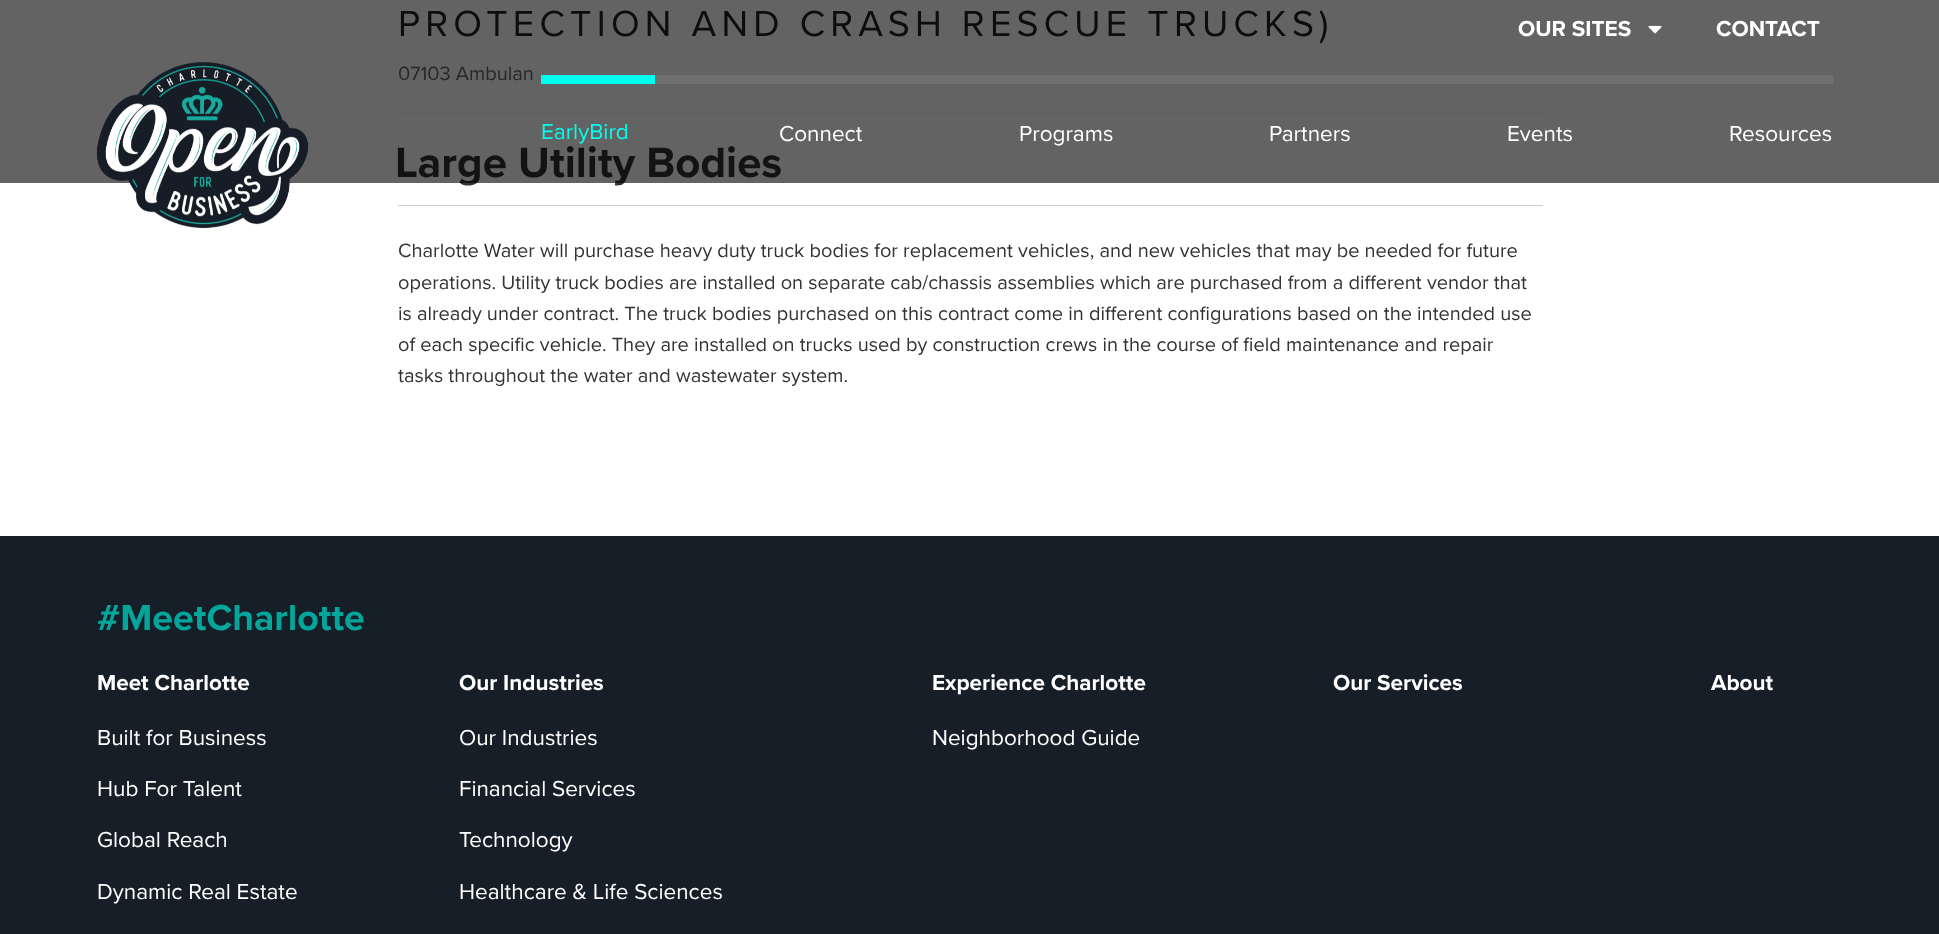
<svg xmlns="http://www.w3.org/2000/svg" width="1939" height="934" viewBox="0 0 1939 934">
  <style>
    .t1 { font: 37.5px Proxima Nova; letter-spacing: 5.25px; fill: #222; }
    .t2 { font: 20px Proxima Nova; fill: #666; }
    .t3 { font: bold 43.75px Proxima Nova; fill: #333; }
    .t4 { font: 20px Proxima Nova; fill: #333; }
    .t5 { font: bold 22.5px Proxima Nova; fill: #fff; }
    .t6 { font: 22.5px Proxima Nova; fill: #00ffef; }
    .t7 { font: 22.5px Proxima Nova; fill: #fff; }
    .t8 { font: bold 37.5px Proxima Nova; fill: #04a69c; }
  </style>
  <rect width="100%" height="100%" fill="#fff"/>
  <rect x="398" y="113" width="1145" height="1" fill="#eee"/>
  <text x="398" y="36" class="t1">PROTECTION AND CRASH RESCUE TRUCKS)</text>
  <text x="398" y="80" class="t2">07103 Ambulan</text>
  <rect x="398" y="205" width="1145" height="1" fill="#ccc"/>
  <text x="395" y="177" class="t3">Large Utility Bodies</text>
  <text x="398" y="257" class="t4">Charlotte Water will purchase heavy duty truck bodies for replacement vehicles, and new vehicles that may be needed for future</text>
  <text x="398" y="289" class="t4">operations. Utility truck bodies are installed on separate cab/chassis assemblies which are purchased from a different vendor that</text>
  <text x="398" y="320" class="t4">is already under contract. The truck bodies purchased on this contract come in different configurations based on the intended use</text>
  <text x="398" y="351" class="t4">of each specific vehicle. They are installed on trucks used by construction crews in the course of field maintenance and repair</text>
  <text x="398" y="382" class="t4">tasks throughout the water and wastewater system.</text>
  <rect x="0" y="0" width="1939" height="183" fill="#0000009c"/>
  <text x="1518" y="36" class="t5">OUR SITES</text>
  <image x="1648" y="25" width="14" height="9" href="images/1.png"/>
  <text x="1716" y="36" class="t5">CONTACT</text>
  <image x="96" y="62" width="213" height="167" href="images/2.png"/>
  <rect x="541" y="75" width="114" height="9" fill="#00ffef"/>
  <text x="541" y="139" class="t6">EarlyBird</text>
  <rect x="655" y="75" width="1178" height="9" fill="#707070"/>
  <text x="779" y="141" class="t7">Connect</text>
  <text x="1019" y="141" class="t7">Programs</text>
  <text x="1269" y="141" class="t7">Partners</text>
  <text x="1507" y="141" class="t7">Events</text>
  <text x="1729" y="141" class="t7">Resources</text>
  <rect x="0" y="536" width="1939" height="398" fill="#161e27"/>
  <text x="97" y="630" class="t8">#MeetCharlotte</text>
  <text x="97" y="690" class="t5">Meet Charlotte</text>
  <text x="97" y="745" class="t7">Built for Business</text>
  <text x="97" y="796" class="t7">Hub For Talent</text>
  <text x="97" y="847" class="t7">Global Reach</text>
  <text x="97" y="899" class="t7">Dynamic Real Estate</text>
  <text x="459" y="690" class="t5">Our Industries</text>
  <text x="459" y="745" class="t7">Our Industries</text>
  <text x="459" y="796" class="t7">Financial Services</text>
  <text x="459" y="847" class="t7">Technology</text>
  <text x="459" y="899" class="t7">Healthcare &amp; Life Sciences</text>
  <text x="932" y="690" class="t5">Experience Charlotte</text>
  <text x="932" y="745" class="t7">Neighborhood Guide</text>
  <text x="1333" y="690" class="t5">Our Services</text>
  <text x="1711" y="690" class="t5">About</text>
</svg>
